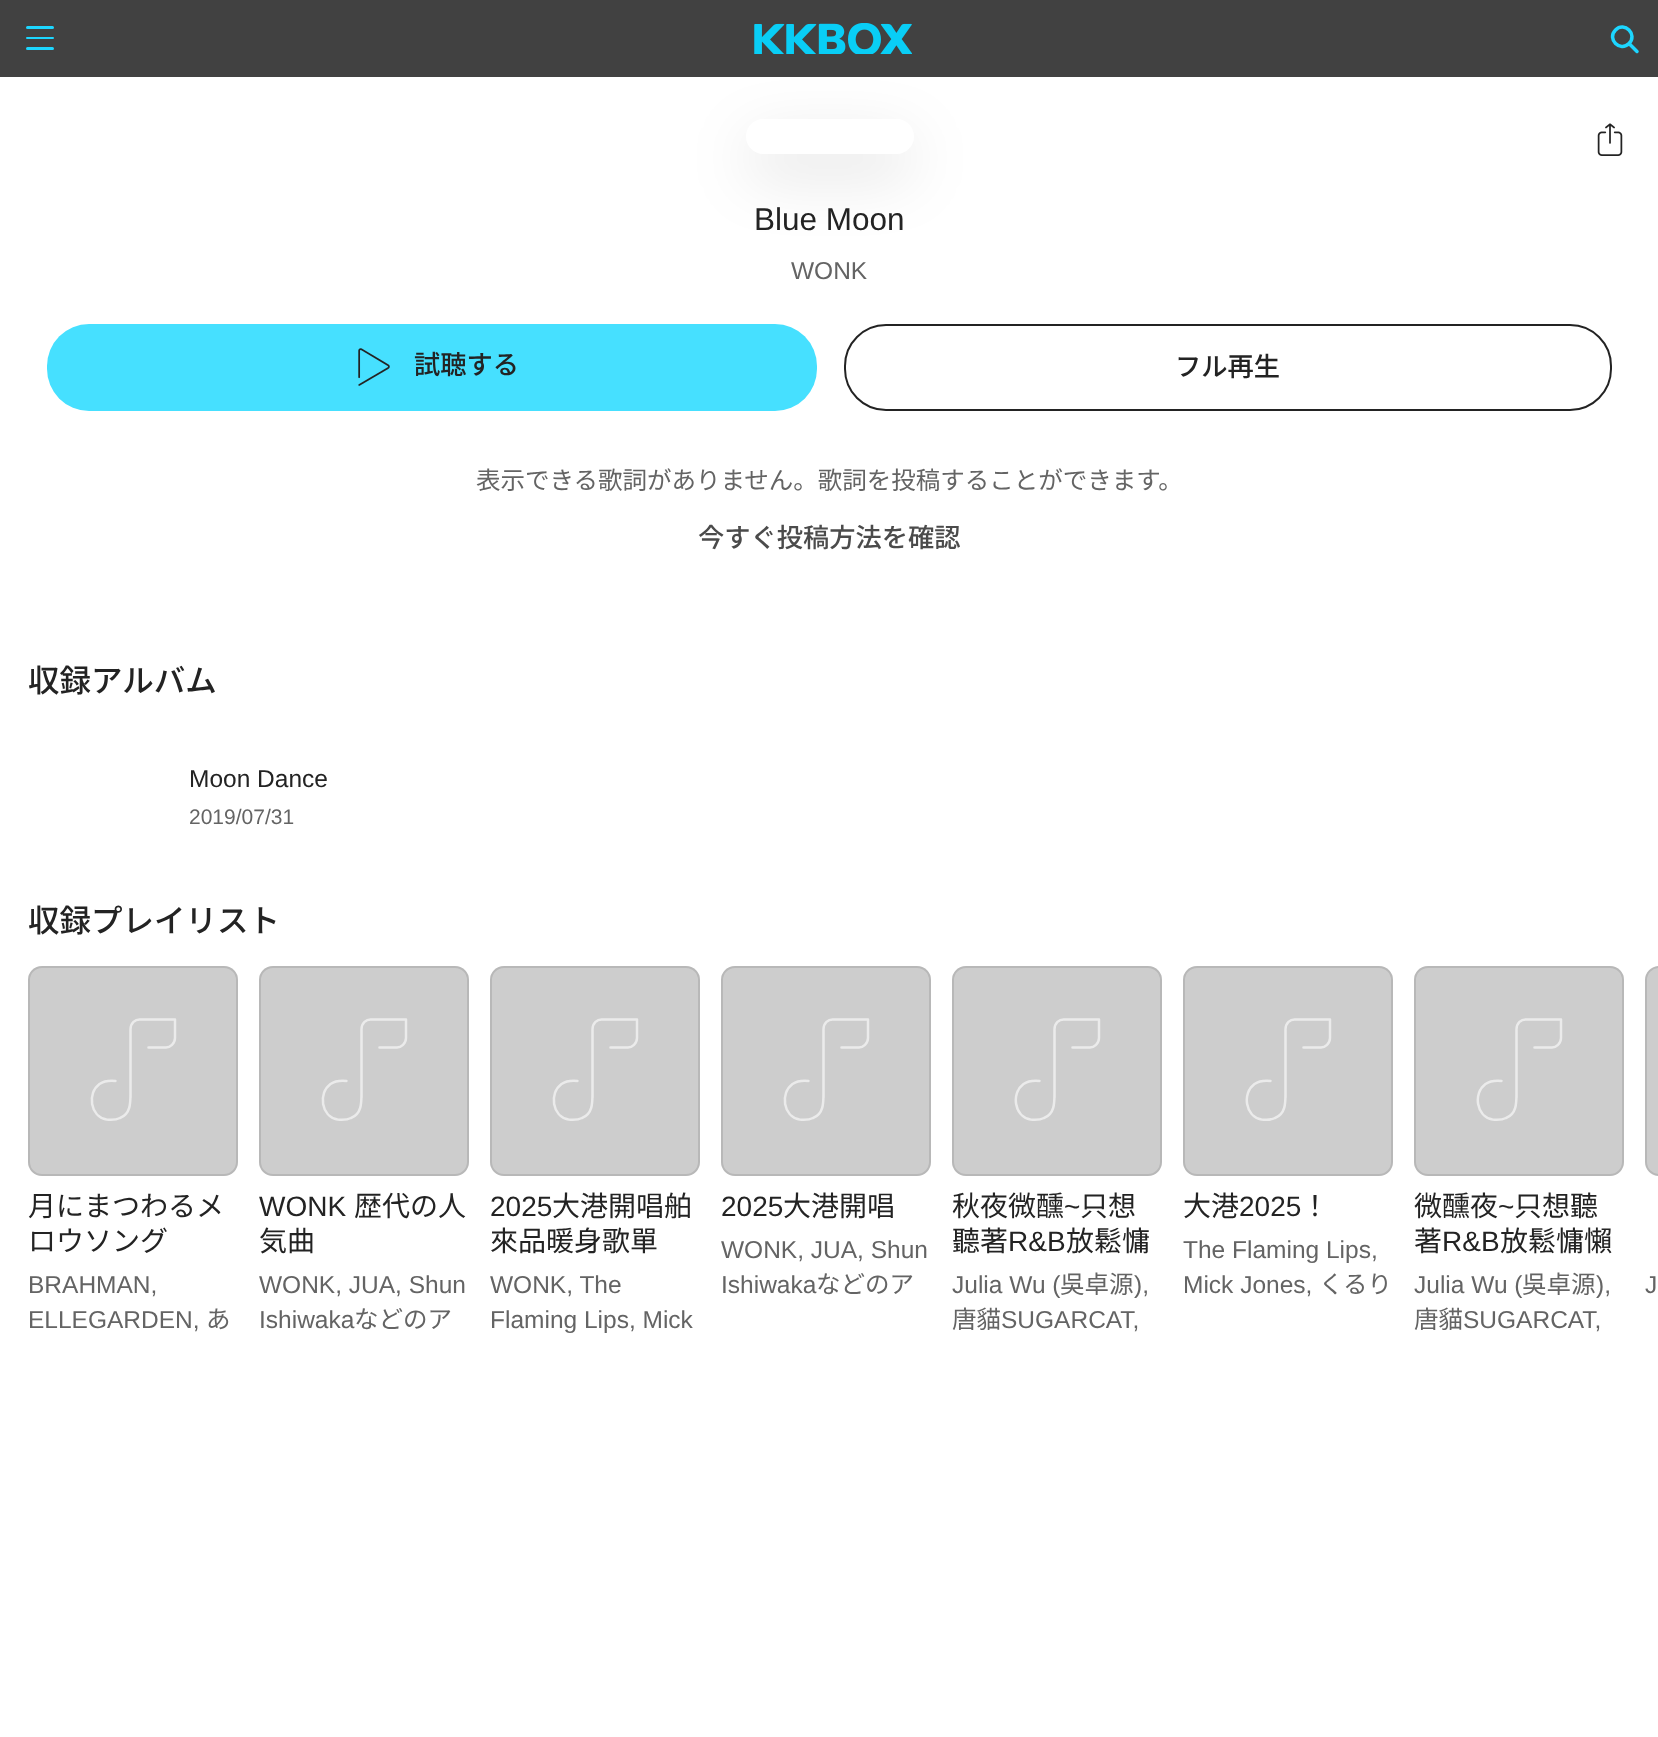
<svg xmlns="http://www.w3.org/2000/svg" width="1658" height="1737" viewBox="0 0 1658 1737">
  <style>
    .t1 { font: 31.5px Liberation Sans; fill: #232323; }
    .t2 { font: 24.5px Liberation Sans; fill: #646464; }
    .t3 { font: 500 26.25px Noto Sans JP; fill: #232323; }
    .t4 { font: 24.5px Noto Sans JP; fill: #646464; }
    .t5 { font: 500 26.25px Noto Sans JP; fill: #4b4b4b; }
    .t6 { font: 500 31.5px Noto Sans JP; fill: #232323; }
    .t7 { font: 24.5px Liberation Sans; fill: #232323; }
    .t8 { font: 21px Liberation Sans; fill: #646464; }
    .t9 { font: 28px Noto Sans JP; fill: #232323; }
    .t10 { font: 28px Liberation Sans; fill: #232323; }
  </style>
  <defs>
    <clipPath id="clip1"><path d="M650 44H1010V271H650ZM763.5 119H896.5C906 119 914 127 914 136.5C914 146 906 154 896.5 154H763.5C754 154 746 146 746 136.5C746 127 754 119 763.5 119Z" clip-rule="evenodd"/></clipPath>
  </defs>
  <rect width="100%" height="100%" fill="#fff"/>
  <g clip-path="url(#clip1)">
    <rect x="746" y="140" width="168" height="35" rx="17.5" fill="#0000001f" filter="blur(31.5px)"/>
  </g>
  <rect x="0" y="0" width="1658" height="77" fill="#414141"/>
  <rect x="26" y="26" width="28" height="3" rx="1.5" fill="#1dd6ff"/>
  <rect x="26" y="37" width="28" height="2" rx="1" fill="#1dd6ff"/>
  <rect x="26" y="47" width="28" height="3" rx="1.5" fill="#1dd6ff"/>
  <image x="754" y="23" width="158" height="31" href="images/1.png"/>
  <path d="M1615.5 30C1624.5 21 1638 34.5 1629 43.5C1620 52.5 1606.5 39 1615.5 30ZM1629.5 44L1637 51.5" fill="none" stroke="#1dd6ff" stroke-width="3.5" stroke-linecap="round" stroke-linejoin="round"/>
  <image x="1597" y="123" width="26" height="33" href="images/2.png"/>
  <text x="754" y="230" class="t1">Blue Moon</text>
  <text x="791" y="279" class="t2">WONK</text>
  <rect x="47" y="324" width="770" height="87" rx="42" fill="#46e0ff"/>
  <image x="358" y="348" width="32" height="38" href="images/3.png"/>
  <text x="414" y="374" class="t3">試聴する</text>
  <rect x="845" y="325" width="766" height="85" rx="41" fill="none" stroke="#232323" stroke-width="2"/>
  <text x="1175" y="376" class="t3">フル再生</text>
  <text x="476" y="489" class="t4">表示できる歌詞がありません。歌詞を投稿することができます。</text>
  <text x="698" y="547" class="t5">今すぐ投稿方法を確認</text>
  <text x="28" y="692" class="t6">収録アルバム</text>
  <text x="189" y="787" class="t7">Moon Dance</text>
  <text x="189" y="824" class="t8">2019/07/31</text>
  <text x="28" y="932" class="t6">収録プレイリスト</text>
  <rect x="28" y="966" width="210" height="210" rx="14" fill="#cdcdcd"/>
  <path d="M115.5 1081C110 1080.5 104 1081 99.5 1084C87 1093 90 1116.5 106.5 1119.5C111 1120 116 1120 120 1118C130.5 1114 130.5 1103 130.5 1093.5V1097.5V1029.5C130.5 1022.5 135.5 1019.5 139.5 1019.5H175V1038C175 1043.5 170 1047.5 166 1047.5H148.5" fill="none" stroke="#ebebeb" stroke-width="2.5" stroke-linecap="round" stroke-linejoin="round"/>
  <rect x="29" y="967" width="208" height="208" rx="13" fill="none" stroke="#0000001a" stroke-width="2"/>
  <text x="28" y="1216" class="t9">月にまつわるメ</text>
  <text x="28" y="1251" class="t9">ロウソング</text>
  <text x="28" y="1293" class="t2">BRAHMAN,</text>
  <text x="28" y="1328" class="t2">ELLEGARDEN,</text>
  <text x="206" y="1328" class="t4">あ</text>
  <rect x="259" y="966" width="210" height="210" rx="14" fill="#cdcdcd"/>
  <path d="M346.5 1081C341 1080.5 335 1081 330.5 1084C318 1093 321 1116.5 337.5 1119.5C342 1120 347 1120 351 1118C361.5 1114 361.5 1103 361.5 1093.5V1097.5V1029.5C361.5 1022.5 366.5 1019.5 370.5 1019.5H406V1038C406 1043.5 401 1047.5 397 1047.5H379.5" fill="none" stroke="#ebebeb" stroke-width="2.5" stroke-linecap="round" stroke-linejoin="round"/>
  <rect x="260" y="967" width="208" height="208" rx="13" fill="none" stroke="#0000001a" stroke-width="2"/>
  <text x="259" y="1216" class="t10">WONK</text>
  <text x="354" y="1216" class="t9">歴代の人</text>
  <text x="259" y="1251" class="t9">気曲</text>
  <text x="259" y="1293" class="t2">WONK, JUA, Shun</text>
  <text x="259" y="1328" class="t2">Ishiwaka</text>
  <text x="354" y="1328" class="t4">などのア</text>
  <rect x="490" y="966" width="210" height="210" rx="14" fill="#cdcdcd"/>
  <path d="M577.5 1081C572 1080.5 566 1081 561.5 1084C549 1093 552 1116.5 568.5 1119.5C573 1120 578 1120 582 1118C592.5 1114 592.5 1103 592.5 1093.5V1097.5V1029.5C592.5 1022.5 597.5 1019.5 601.5 1019.5H637V1038C637 1043.5 632 1047.5 628 1047.5H610.5" fill="none" stroke="#ebebeb" stroke-width="2.5" stroke-linecap="round" stroke-linejoin="round"/>
  <rect x="491" y="967" width="208" height="208" rx="13" fill="none" stroke="#0000001a" stroke-width="2"/>
  <text x="490" y="1216" class="t10">2025</text>
  <text x="552" y="1216" class="t9">大港開唱舶</text>
  <text x="490" y="1251" class="t9">來品暖身歌單</text>
  <text x="490" y="1293" class="t2">WONK, The</text>
  <text x="490" y="1328" class="t2">Flaming Lips, Mick</text>
  <rect x="721" y="966" width="210" height="210" rx="14" fill="#cdcdcd"/>
  <path d="M808.5 1081C803 1080.5 797 1081 792.5 1084C780 1093 783 1116.5 799.5 1119.5C804 1120 809 1120 813 1118C823.5 1114 823.5 1103 823.5 1093.5V1097.5V1029.5C823.5 1022.5 828.5 1019.5 832.5 1019.5H868V1038C868 1043.5 863 1047.5 859 1047.5H841.5" fill="none" stroke="#ebebeb" stroke-width="2.5" stroke-linecap="round" stroke-linejoin="round"/>
  <rect x="722" y="967" width="208" height="208" rx="13" fill="none" stroke="#0000001a" stroke-width="2"/>
  <text x="721" y="1216" class="t10">2025</text>
  <text x="783" y="1216" class="t9">大港開唱</text>
  <text x="721" y="1258" class="t2">WONK, JUA, Shun</text>
  <text x="721" y="1293" class="t2">Ishiwaka</text>
  <text x="816" y="1293" class="t4">などのア</text>
  <rect x="952" y="966" width="210" height="210" rx="14" fill="#cdcdcd"/>
  <path d="M1039.5 1081C1034 1080.5 1028 1081 1023.5 1084C1011 1093 1014 1116.5 1030.5 1119.5C1035 1120 1040 1120 1044 1118C1054.5 1114 1054.5 1103 1054.5 1093.5V1097.5V1029.5C1054.5 1022.5 1059.5 1019.5 1063.5 1019.5H1099V1038C1099 1043.5 1094 1047.5 1090 1047.5H1072.5" fill="none" stroke="#ebebeb" stroke-width="2.5" stroke-linecap="round" stroke-linejoin="round"/>
  <rect x="953" y="967" width="208" height="208" rx="13" fill="none" stroke="#0000001a" stroke-width="2"/>
  <text x="952" y="1216" class="t9">秋夜微醺</text>
  <text x="1064" y="1216" class="t10">~</text>
  <text x="1080" y="1216" class="t9">只想</text>
  <text x="952" y="1251" class="t9">聽著</text>
  <text x="1008" y="1251" class="t10">R&amp;B</text>
  <text x="1066" y="1251" class="t9">放鬆慵</text>
  <text x="952" y="1293" class="t2">Julia Wu (</text>
  <text x="1060" y="1293" class="t4">吳卓源</text>
  <text x="1134" y="1293" class="t2">),</text>
  <text x="952" y="1328" class="t4">唐貓</text>
  <text x="1001" y="1328" class="t2">SUGARCAT,</text>
  <rect x="1183" y="966" width="210" height="210" rx="14" fill="#cdcdcd"/>
  <path d="M1270.5 1081C1265 1080.5 1259 1081 1254.5 1084C1242 1093 1245 1116.5 1261.5 1119.5C1266 1120 1271 1120 1275 1118C1285.5 1114 1285.5 1103 1285.5 1093.5V1097.5V1029.5C1285.5 1022.5 1290.5 1019.5 1294.5 1019.5H1330V1038C1330 1043.5 1325 1047.5 1321 1047.5H1303.5" fill="none" stroke="#ebebeb" stroke-width="2.5" stroke-linecap="round" stroke-linejoin="round"/>
  <rect x="1184" y="967" width="208" height="208" rx="13" fill="none" stroke="#0000001a" stroke-width="2"/>
  <text x="1183" y="1216" class="t9">大港</text>
  <text x="1239" y="1216" class="t10">2025</text>
  <text x="1301" y="1216" class="t9">！</text>
  <text x="1183" y="1258" class="t2">The Flaming Lips,</text>
  <text x="1183" y="1293" class="t2">Mick Jones,</text>
  <text x="1319" y="1293" class="t4">くるり</text>
  <rect x="1414" y="966" width="210" height="210" rx="14" fill="#cdcdcd"/>
  <path d="M1501.5 1081C1496 1080.5 1490 1081 1485.5 1084C1473 1093 1476 1116.5 1492.5 1119.5C1497 1120 1502 1120 1506 1118C1516.5 1114 1516.5 1103 1516.5 1093.5V1097.5V1029.5C1516.5 1022.5 1521.5 1019.5 1525.5 1019.5H1561V1038C1561 1043.5 1556 1047.5 1552 1047.5H1534.5" fill="none" stroke="#ebebeb" stroke-width="2.5" stroke-linecap="round" stroke-linejoin="round"/>
  <rect x="1415" y="967" width="208" height="208" rx="13" fill="none" stroke="#0000001a" stroke-width="2"/>
  <text x="1414" y="1216" class="t9">微醺夜</text>
  <text x="1498" y="1216" class="t10">~</text>
  <text x="1514" y="1216" class="t9">只想聽</text>
  <text x="1414" y="1251" class="t9">著</text>
  <text x="1442" y="1251" class="t10">R&amp;B</text>
  <text x="1500" y="1251" class="t9">放鬆慵懶</text>
  <text x="1414" y="1293" class="t2">Julia Wu (</text>
  <text x="1522" y="1293" class="t4">吳卓源</text>
  <text x="1596" y="1293" class="t2">),</text>
  <text x="1414" y="1328" class="t4">唐貓</text>
  <text x="1463" y="1328" class="t2">SUGARCAT,</text>
  <path d="M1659 966V1176C1651.5 1176 1645 1169.5 1645 1162V980C1645 972.5 1651.5 966 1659 966Z" fill="#cdcdcd"/>
  <rect x="1646" y="967" width="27" height="208" rx="13" fill="none" stroke="#0000001a" stroke-width="2"/>
  <text x="1645" y="1293" class="t2">J</text>
</svg>
